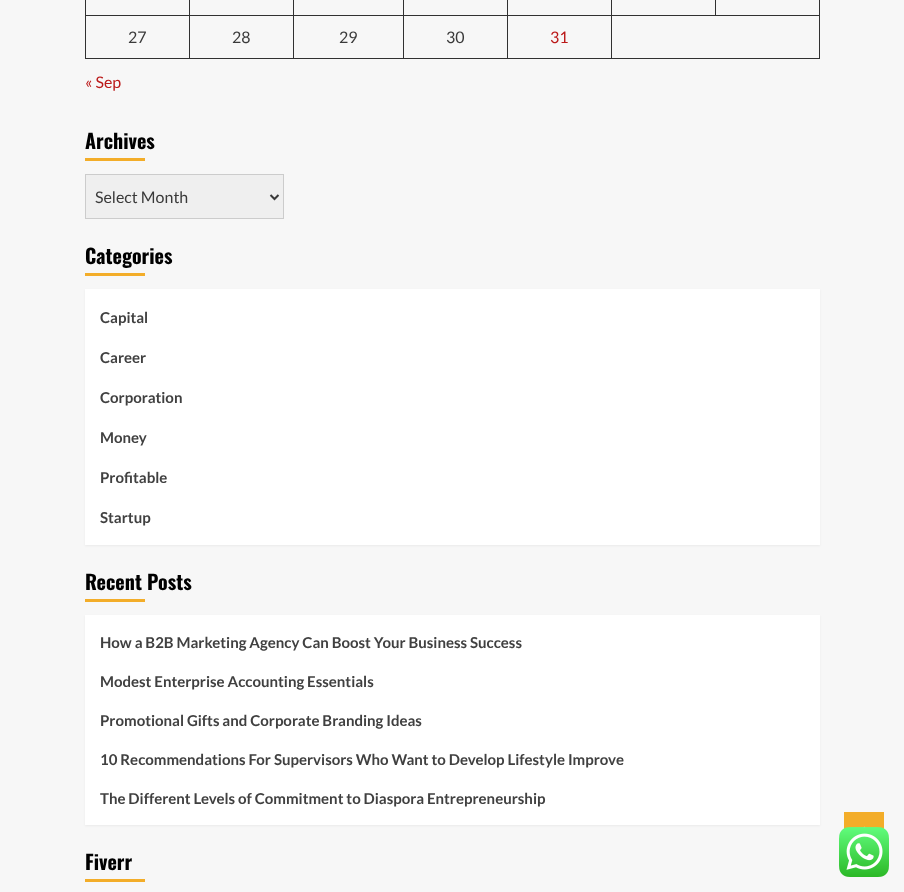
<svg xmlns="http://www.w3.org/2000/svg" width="904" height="892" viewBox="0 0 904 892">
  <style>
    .t1 { font: 16px Lato; fill: #3a3a3a; }
    .t2 { font: 16px Lato; fill: #bb1919; }
    .t3 { font: bold 20px Oswald; fill: #000; }
    .t4 { font: bold 15px Lato; fill: #404040; }
  </style>
  <rect width="100%" height="100%" fill="#f7f7f7"/>
  <rect x="611" y="15" width="209" height="1" fill="#313131"/>
  <rect x="819" y="0" width="1" height="59" fill="#313131"/>
  <rect x="611" y="58" width="209" height="1" fill="#313131"/>
  <rect x="611" y="15" width="1" height="44" fill="#313131"/>
  <rect x="507" y="15" width="105" height="1" fill="#313131"/>
  <rect x="507" y="58" width="105" height="1" fill="#313131"/>
  <rect x="507" y="15" width="1" height="44" fill="#313131"/>
  <rect x="403" y="15" width="105" height="1" fill="#313131"/>
  <rect x="403" y="58" width="105" height="1" fill="#313131"/>
  <rect x="403" y="15" width="1" height="44" fill="#313131"/>
  <rect x="293" y="15" width="111" height="1" fill="#313131"/>
  <rect x="293" y="58" width="111" height="1" fill="#313131"/>
  <rect x="293" y="15" width="1" height="44" fill="#313131"/>
  <rect x="189" y="15" width="105" height="1" fill="#313131"/>
  <rect x="189" y="58" width="105" height="1" fill="#313131"/>
  <rect x="189" y="15" width="1" height="44" fill="#313131"/>
  <rect x="85" y="15" width="105" height="1" fill="#313131"/>
  <rect x="189" y="0" width="1" height="16" fill="#313131"/>
  <rect x="293" y="0" width="1" height="16" fill="#313131"/>
  <rect x="403" y="0" width="1" height="16" fill="#313131"/>
  <rect x="507" y="0" width="1" height="16" fill="#313131"/>
  <rect x="611" y="0" width="1" height="16" fill="#313131"/>
  <rect x="715" y="0" width="1" height="16" fill="#313131"/>
  <rect x="85" y="58" width="105" height="1" fill="#313131"/>
  <rect x="85" y="0" width="1" height="59" fill="#313131"/>
  <text x="128" y="43" class="t1">27</text>
  <text x="232" y="43" class="t1">28</text>
  <text x="339" y="43" class="t1">29</text>
  <text x="446" y="43" class="t1">30</text>
  <text x="550" y="43" class="t2">31</text>
  <text x="85" y="88" class="t2">« Sep</text>
  <text x="85" y="149" class="t3">Archives</text>
  <rect x="85" y="158" width="60" height="3" fill="#f3ad29"/>
  <rect x="85.5" y="174.5" width="198" height="44" fill="#efefef" stroke="#ccc"/>
  <path d="M270.5 195L274.5 199L278.5 195" fill="none" stroke="#3a3a3a" stroke-width="2"/>
  <text x="95" y="203" class="t1">Select Month</text>
  <text x="85" y="264" class="t3">Categories</text>
  <rect x="85" y="273" width="60" height="3" fill="#f3ad29"/>
  <rect x="85" y="290" width="735" height="256" fill="#0000000d" filter="blur(1px)"/>
  <rect x="85" y="289" width="735" height="256" fill="#fff"/>
  <text x="100" y="323" class="t4">Capital</text>
  <text x="100" y="363" class="t4">Career</text>
  <text x="100" y="403" class="t4">Corporation</text>
  <text x="100" y="443" class="t4">Money</text>
  <text x="100" y="483" class="t4">Profitable</text>
  <text x="100" y="523" class="t4">Startup</text>
  <text x="85" y="590" class="t3">Recent Posts</text>
  <rect x="85" y="599" width="60" height="3" fill="#f3ad29"/>
  <rect x="85" y="616" width="735" height="210" fill="#0000000d" filter="blur(1px)"/>
  <rect x="85" y="615" width="735" height="210" fill="#fff"/>
  <text x="100" y="648" class="t4">How a B2B Marketing Agency Can Boost Your Business Success</text>
  <text x="100" y="687" class="t4">Modest Enterprise Accounting Essentials</text>
  <text x="100" y="726" class="t4">Promotional Gifts and Corporate Branding Ideas</text>
  <text x="100" y="765" class="t4">10 Recommendations For Supervisors Who Want to Develop Lifestyle Improve</text>
  <text x="100" y="804" class="t4">The Different Levels of Commitment to Diaspora Entrepreneurship</text>
  <text x="85" y="870" class="t3">Fiverr</text>
  <rect x="85" y="879" width="60" height="3" fill="#f3ad29"/>
  <rect x="844" y="812" width="40" height="17" fill="#f3ad29"/>
  <image x="863" y="826" width="3" height="2" href="images/1.png"/>
  <image x="839" y="827" width="50" height="50" href="images/2.png"/>
</svg>
